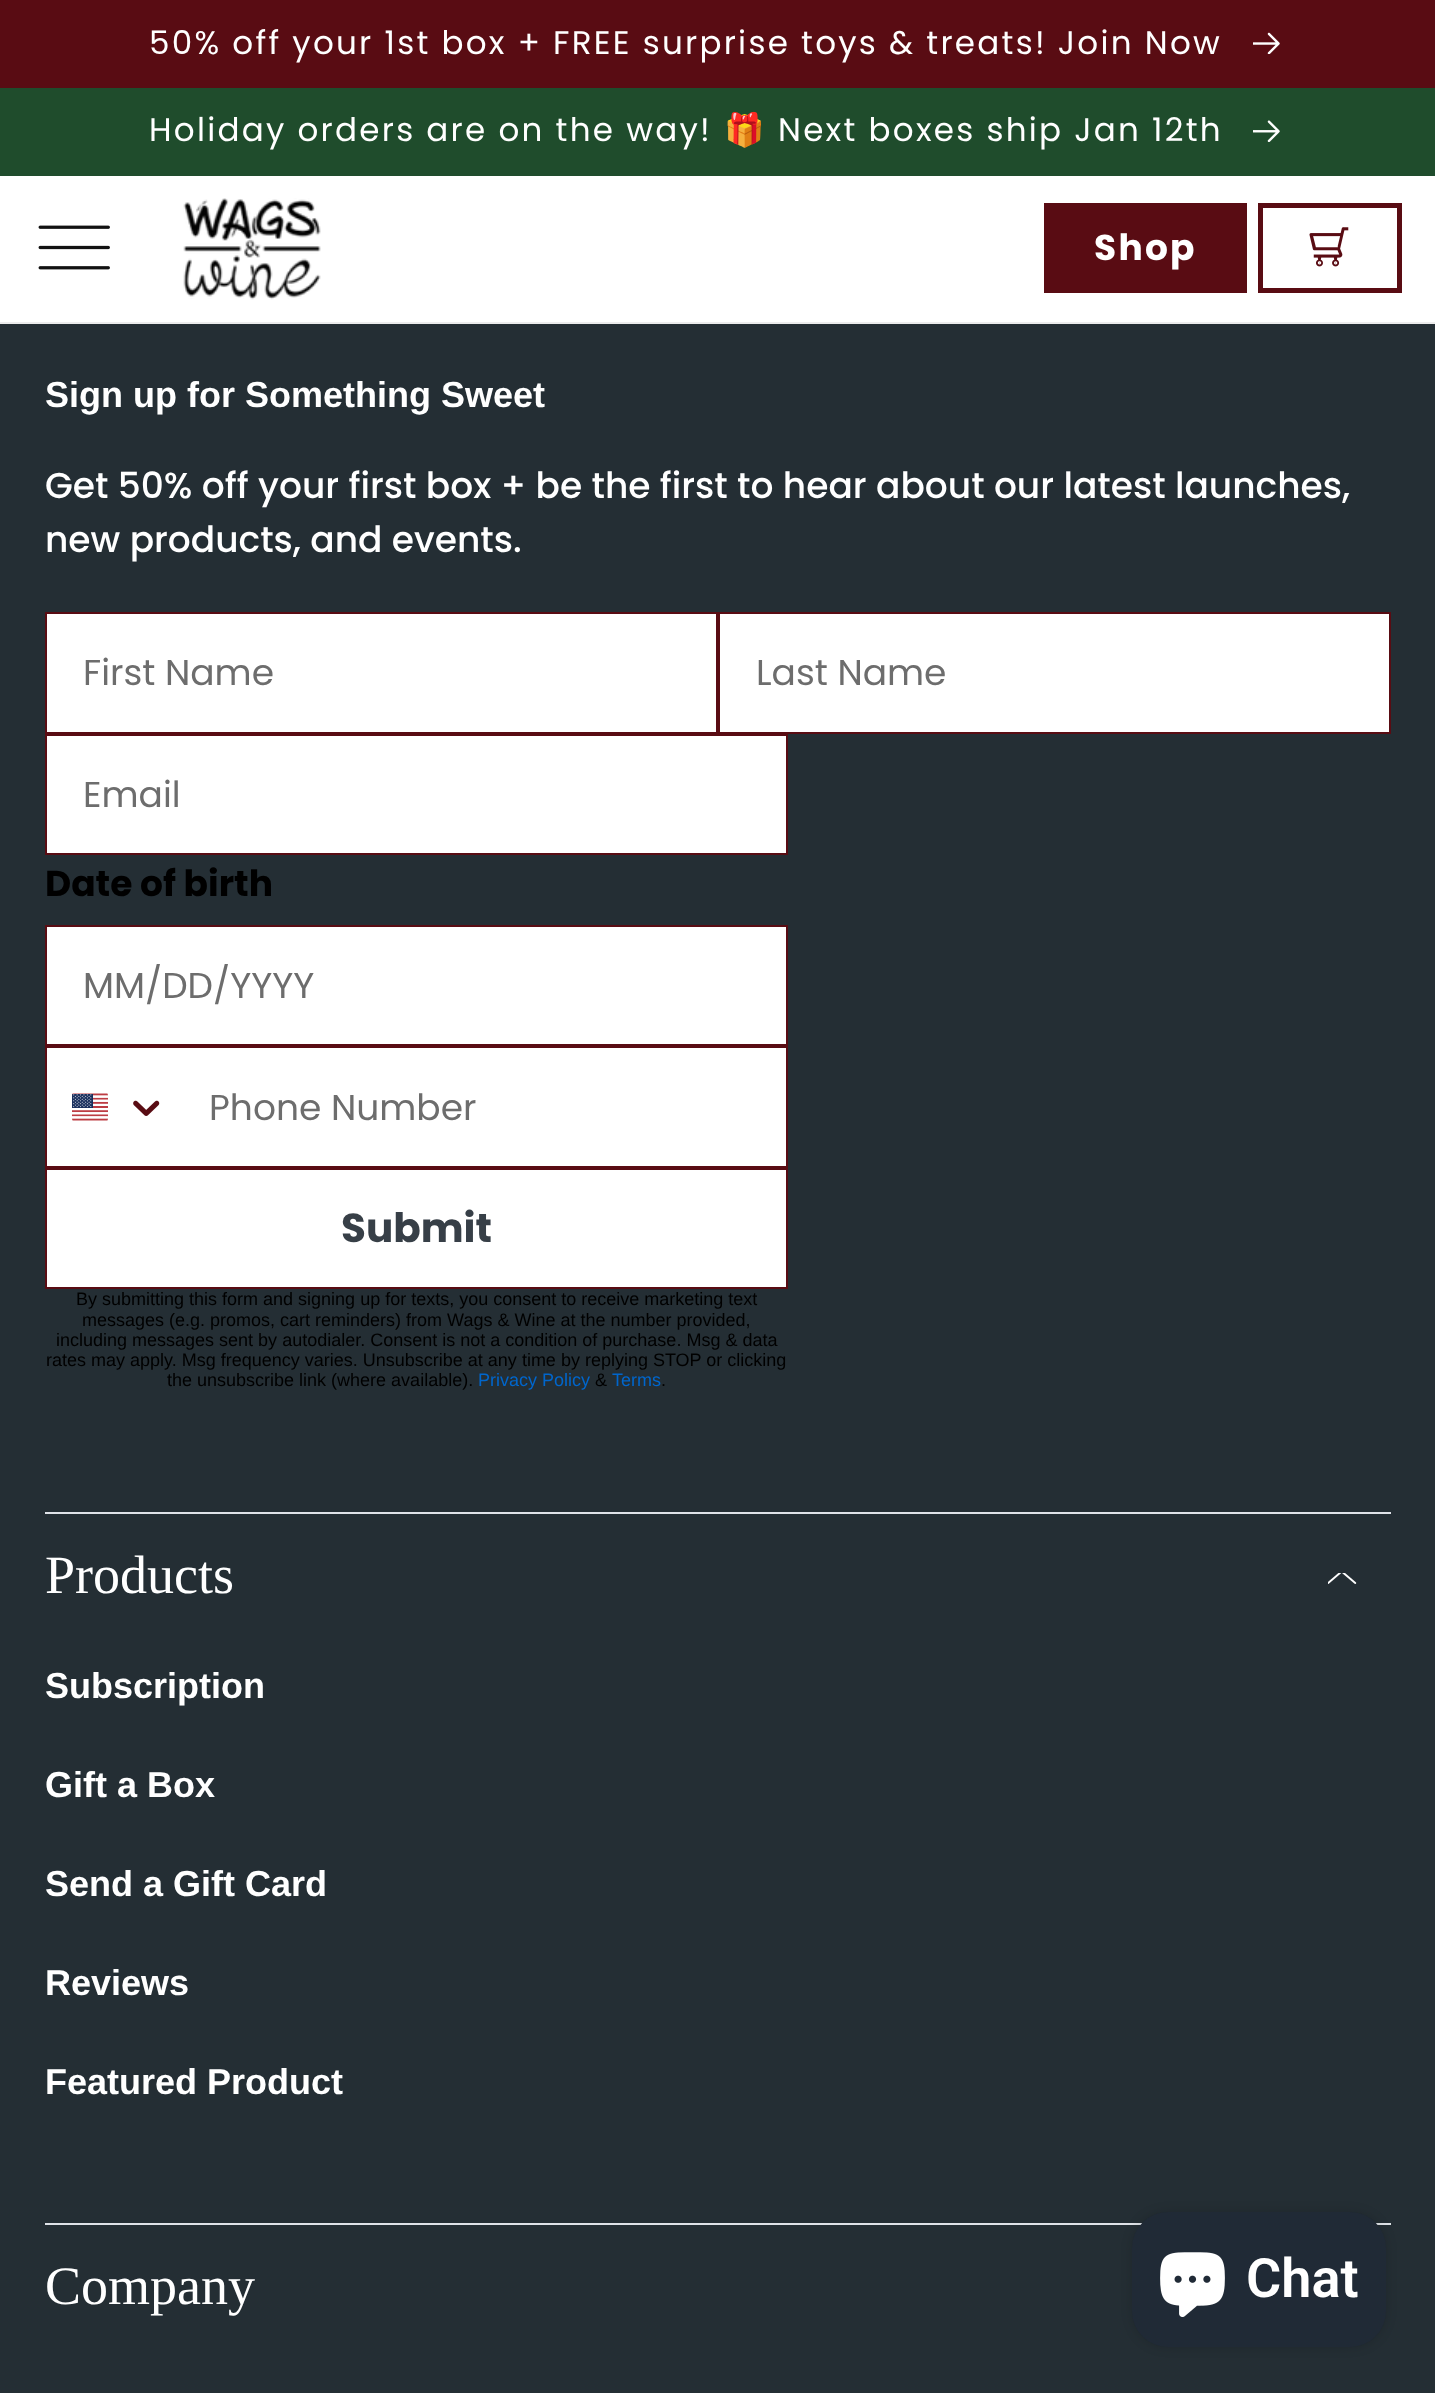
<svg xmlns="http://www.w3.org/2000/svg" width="1435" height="2393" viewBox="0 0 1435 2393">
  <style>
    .t1 { font: 32.6px Poppins; letter-spacing: 2.25px; fill: #fff; }
    .t2 { font: 32.6px Noto Color Emoji; letter-spacing: 2.25px; fill: #fff; }
    .t3 { font: bold 36px Poppins; letter-spacing: 2.25px; fill: #fff; }
    .t4 { font: bold 36px Liberation Sans; fill: #fff; }
    .t5 { font: 500 36px Poppins; fill: #fff; }
    .t6 { font: 36px Poppins; fill: #6d6d6d; }
    .t7 { font: bold 36px Poppins; fill: #000; }
    .t8 { font: bold 40.5px Poppins; fill: #373f47; }
    .t9 { font: 18px Liberation Sans; fill: #000; }
    .t10 { font: 18px Liberation Sans; fill: #06c; }
    .t11 { font: 54px Liberation Serif; fill: #fff; }
    .t12 { font: 600 54px Roboto; fill: #fff; }
  </style>
  <rect width="100%" height="100%" fill="#fff"/>
  <rect x="0" y="0" width="1435" height="88" fill="#590c13"/>
  <text x="149" y="54" class="t1">50% off your 1st box + FREE surprise toys &amp; treats! Join Now</text>
  <image x="1253" y="32" width="27" height="22" href="images/1.png"/>
  <rect x="0" y="88" width="1435" height="88" fill="#1f4c2c"/>
  <text x="149" y="141" class="t1">Holiday orders are on the way!</text>
  <text x="724" y="141" class="t2">🎁</text>
  <text x="778" y="141" class="t1">Next boxes ship Jan 12th</text>
  <image x="1253" y="120" width="27" height="22" href="images/2.png"/>
  <rect x="0" y="322" width="1435" height="2" fill="#ececec"/>
  <image x="38" y="225" width="72" height="45" href="images/3.png"/>
  <image x="183" y="198" width="138" height="102" href="images/4.png"/>
  <rect x="1044" y="203" width="203" height="90" fill="#590c13"/>
  <text x="1094" y="260" class="t3">Shop</text>
  <rect x="1260.5" y="205.5" width="139" height="85" fill="none" stroke="#590c13" stroke-width="5"/>
  <image x="1309" y="227" width="40" height="40" href="images/5.png"/>
  <rect x="0" y="324" width="1435" height="2069" fill="#242e34"/>
  <text x="45" y="407" class="t4">Sign up for Something Sweet</text>
  <text x="45" y="498" class="t5">Get 50% off your first box + be the first to hear about our latest launches,</text>
  <text x="45" y="552" class="t5">new products, and events.</text>
  <rect x="46" y="613" width="671" height="120" fill="#fff" stroke="#590c13" stroke-width="2"/>
  <text x="83" y="685" class="t6">First Name</text>
  <rect x="719" y="613" width="671" height="120" fill="#fff" stroke="#590c13" stroke-width="2"/>
  <text x="756" y="685" class="t6">Last Name</text>
  <rect x="46" y="735" width="741" height="119" fill="#fff" stroke="#590c13" stroke-width="2"/>
  <text x="83" y="807" class="t6">Email</text>
  <text x="45" y="896" class="t7">Date of birth</text>
  <rect x="46" y="926" width="741" height="119" fill="#fff" stroke="#590c13" stroke-width="2"/>
  <text x="83" y="998" class="t6">MM/DD/YYYY</text>
  <rect x="46" y="1047" width="741" height="120" fill="#fff" stroke="#590c13" stroke-width="2"/>
  <image x="72" y="1093" width="36" height="28" href="images/6.png"/>
  <image x="133" y="1100" width="27" height="16" href="images/7.png"/>
  <text x="209" y="1120" class="t6">Phone Number</text>
  <rect x="46" y="1169" width="741" height="119" fill="#fff" stroke="#590c13" stroke-width="2"/>
  <text x="341" y="1242" class="t8">Submit</text>
  <text x="76" y="1305" class="t9">By submitting this form and signing up for texts, you consent to receive marketing text</text>
  <text x="82" y="1326" class="t9">messages (e.g. promos, cart reminders) from Wags &amp; Wine at the number provided,</text>
  <text x="56" y="1346" class="t9">including messages sent by autodialer. Consent is not a condition of purchase. Msg &amp; data</text>
  <text x="46" y="1366" class="t9">rates may apply. Msg frequency varies. Unsubscribe at any time by replying STOP or clicking</text>
  <text x="167" y="1386" class="t9">the unsubscribe link (where available).</text>
  <text x="478" y="1386" class="t10">Privacy Policy</text>
  <text x="595" y="1386" class="t9">&amp;</text>
  <text x="612" y="1386" class="t10">Terms</text>
  <text x="661" y="1386" class="t9">.</text>
  <rect x="45" y="1512" width="1346" height="2" fill="#dfe3e8"/>
  <rect x="45" y="2223" width="1346" height="2" fill="#dfe3e8"/>
  <text x="45" y="1593" class="t11">Products</text>
  <image x="1328" y="1573" width="29" height="11" href="images/8.png"/>
  <text x="45" y="1698" class="t4">Subscription</text>
  <text x="45" y="1797" class="t4">Gift a Box</text>
  <text x="45" y="1896" class="t4">Send a Gift Card</text>
  <text x="45" y="1995" class="t4">Reviews</text>
  <text x="45" y="2094" class="t4">Featured Product</text>
  <text x="45" y="2304" class="t11">Company</text>
  <rect x="1132" y="2212" width="254" height="135" rx="36" fill="#00000026" filter="blur(5.5px)"/>
  <rect x="1132" y="2212" width="254" height="135" rx="36" fill="#202a36"/>
  <image x="1160" y="2252" width="65" height="65" href="images/9.png"/>
  <text x="1246" y="2297" class="t12">Chat</text>
</svg>
